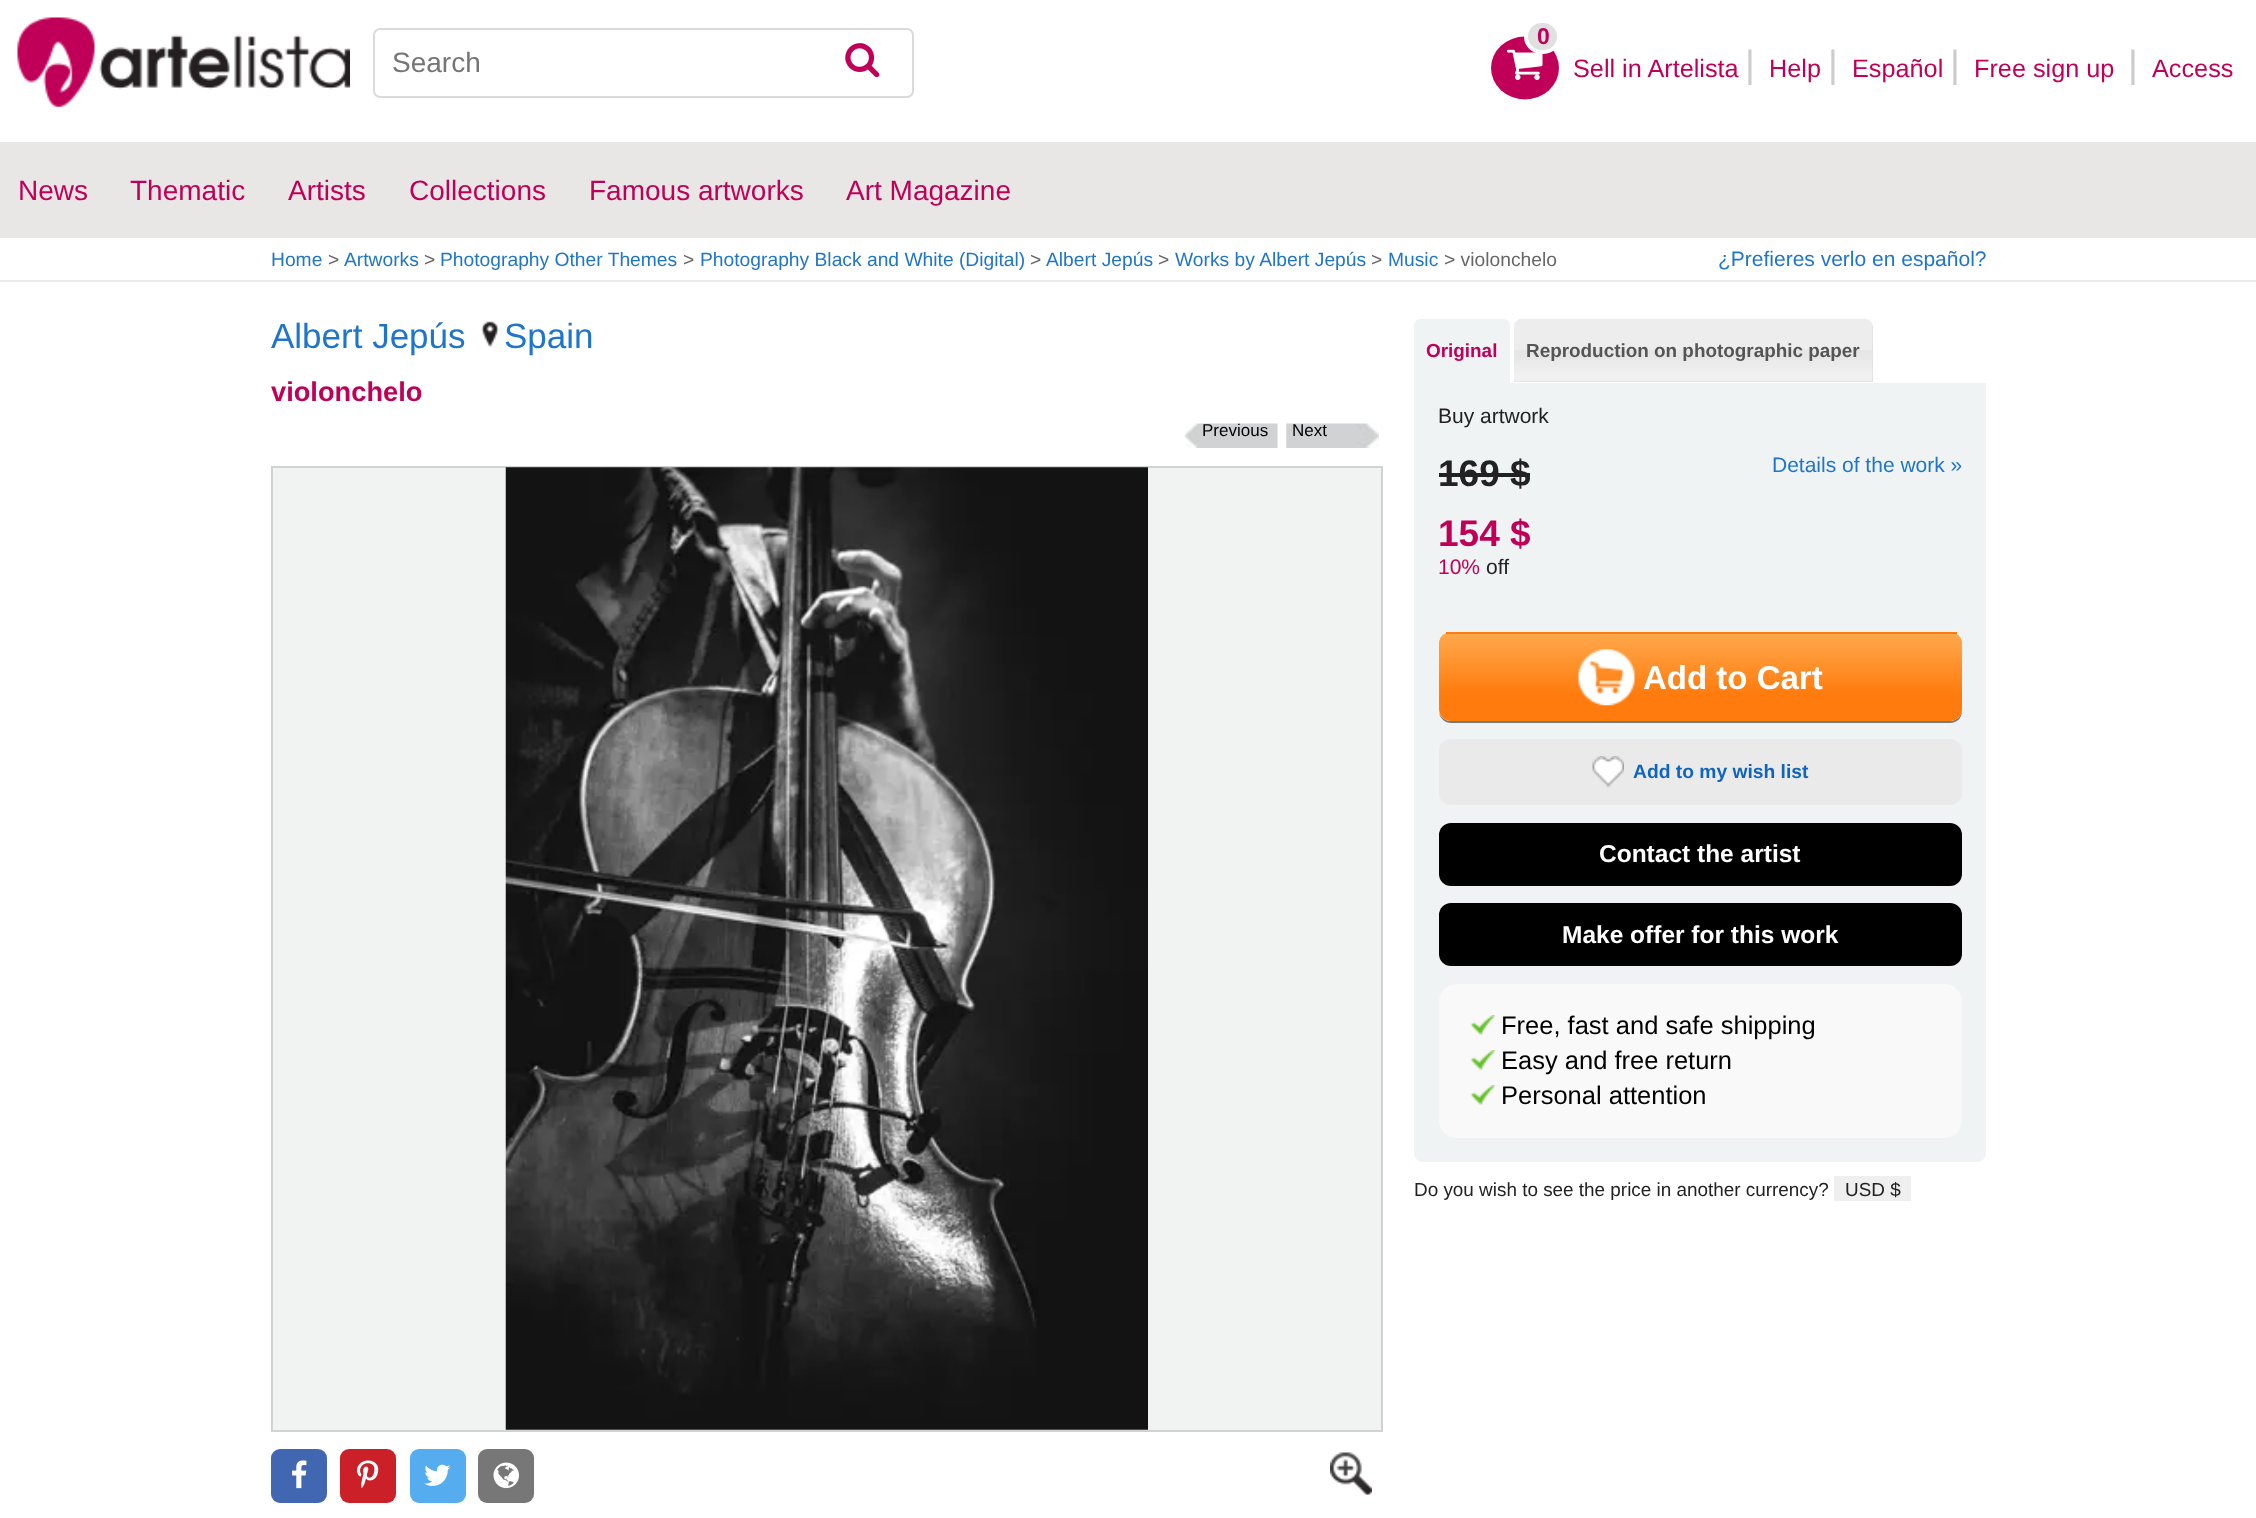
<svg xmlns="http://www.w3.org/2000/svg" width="2256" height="1518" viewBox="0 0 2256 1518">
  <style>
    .t1 { font: 28px Liberation Sans; fill: #757575; }
    .t2 { font: bold 23px Liberation Sans; fill: #c00058; }
    .t3 { font: 25.25px Liberation Sans; fill: #c00058; }
    .t4 { font: 38px Liberation Sans; fill: #ccc; }
    .t5 { font: 28px Liberation Sans; fill: #c00058; }
    .t6 { font: 19.25px Liberation Sans; fill: #1f75cc; }
    .t7 { font: 19.25px Liberation Sans; fill: #666; }
    .t8 { font: 21px Liberation Sans; fill: #1f75cc; }
    .t9 { font: 35px Liberation Sans; fill: #1f75cc; }
    .t10 { font: bold 27.25px Liberation Sans; fill: #c00058; }
    .t11 { font: 17px Liberation Sans; fill: #000; }
    .t12 { font: bold 18.9px Liberation Sans; fill: #c00058; }
    .t13 { font: bold 18.9px Liberation Sans; fill: #555; }
    .t14 { font: 21px Liberation Sans; fill: #222; }
    .t15 { font: bold 37px Liberation Sans; fill: #222; }
    .t16 { font: bold 37px Liberation Sans; fill: #c00058; }
    .t17 { font: 21px Liberation Sans; fill: #c00058; }
    .t18 { font: bold 33px Liberation Sans; fill: #fff; }
    .t19 { font: bold 19.25px Liberation Sans; fill: #0f65bc; }
    .t20 { font: bold 24.5px Liberation Sans; fill: #fff; }
    .t21 { font: 25.5px Liberation Sans; fill: #000; }
    .t22 { font: 18.9px Liberation Sans; fill: #222; }
  </style>
  <defs>
    <clipPath id="clip1"><rect x="1439" y="632" width="523" height="89" rx="12"/></clipPath>
    <linearGradient id="g1" gradientUnits="userSpaceOnUse" x1="1700" y1="634" x2="1700" y2="721"><stop offset="0" stop-color="#ffa84c"/><stop offset="0.7" stop-color="#ff7b0d"/></linearGradient>
  </defs>
  <rect width="100%" height="100%" fill="#fff"/>
  <image x="17" y="17" width="333" height="90" href="images/1.png"/>
  <rect x="374" y="29" width="539" height="68" rx="6" fill="none" stroke="#dadada" stroke-width="2"/>
  <text x="392" y="72" class="t1">Search</text>
  <image x="845" y="43" width="35" height="34" href="images/2.png"/>
  <ellipse cx="1525" cy="68" rx="34" ry="31.5" fill="#c00058"/>
  <image x="1507" y="49" width="36" height="31" href="images/3.png"/>
  <rect x="1526" y="21" width="33" height="31" rx="15.5" fill="#e0e0e0" stroke="#fff" stroke-width="4"/>
  <text x="1537" y="44" class="t2">0</text>
  <text x="1573" y="77" class="t3">Sell in Artelista</text>
  <text x="1745" y="77" class="t4">|</text>
  <text x="1769" y="77" class="t3">Help</text>
  <text x="1828" y="77" class="t4">|</text>
  <text x="1852" y="77" class="t3">Español</text>
  <text x="1950" y="77" class="t4">|</text>
  <text x="1974" y="77" class="t3">Free sign up</text>
  <text x="2128" y="77" class="t4">|</text>
  <text x="2152" y="77" class="t3">Access</text>
  <rect x="0" y="142" width="2256" height="96" fill="#e9e6e6"/>
  <text x="18" y="200" class="t5">News</text>
  <text x="130" y="200" class="t5">Thematic</text>
  <text x="288" y="200" class="t5">Artists</text>
  <text x="409" y="200" class="t5">Collections</text>
  <text x="589" y="200" class="t5">Famous artworks</text>
  <text x="846" y="200" class="t5">Art Magazine</text>
  <rect x="0" y="280" width="2256" height="2" fill="#ebebeb"/>
  <text x="271" y="266" class="t6">Home</text>
  <text x="328" y="266" class="t7">&gt;</text>
  <text x="344" y="266" class="t6">Artworks</text>
  <text x="424" y="266" class="t7">&gt;</text>
  <text x="440" y="266" class="t6">Photography Other Themes</text>
  <text x="683" y="266" class="t7">&gt;</text>
  <text x="700" y="266" class="t6">Photography Black and White (Digital)</text>
  <text x="1030" y="266" class="t7">&gt;</text>
  <text x="1046" y="266" class="t6">Albert Jepús</text>
  <text x="1158" y="266" class="t7">&gt;</text>
  <text x="1175" y="266" class="t6">Works by Albert Jepús</text>
  <text x="1371" y="266" class="t7">&gt;</text>
  <text x="1388" y="266" class="t6">Music</text>
  <text x="1444" y="266" class="t7">&gt; violonchelo</text>
  <text x="1718" y="266" class="t8">¿Prefieres verlo en español?</text>
  <text x="271" y="348" class="t9">Albert Jepús</text>
  <image x="481" y="321" width="18" height="26" href="images/4.png"/>
  <text x="504" y="348" class="t9">Spain</text>
  <text x="271" y="401" class="t10">violonchelo</text>
  <image x="1184" y="423" width="94" height="25" href="images/5.png"/>
  <text x="1202" y="436" class="t11">Previous</text>
  <image x="1286" y="423" width="93" height="25" href="images/6.png"/>
  <text x="1292" y="436" class="t11">Next</text>
  <rect x="272" y="467" width="1110" height="964" fill="#f1f2f2" stroke="#d0d2d3" stroke-width="2"/>
  <image x="505" y="467" width="643" height="963" href="images/7.png"/>
  <rect x="271" y="1449" width="56" height="54" rx="9" fill="#4267b2"/>
  <image x="292" y="1460" width="15" height="29" href="images/8.png"/>
  <rect x="340" y="1449" width="56" height="54" rx="9" fill="#cb2027"/>
  <image x="357" y="1460" width="22" height="28" href="images/9.png"/>
  <rect x="410" y="1449" width="56" height="54" rx="9" fill="#55acee"/>
  <image x="424" y="1464" width="27" height="22" href="images/10.png"/>
  <rect x="478" y="1449" width="56" height="54" rx="9" fill="#777"/>
  <image x="493" y="1462" width="26" height="27" href="images/11.png"/>
  <image x="1330" y="1452" width="42" height="43" href="images/12.png"/>
  <path d="M1423 319H1501C1506 319 1510 323 1510 328V383H1414V328C1414 323 1418 319 1423 319Z" fill="#eff3f4"/>
  <path d="M1421 319H1503C1507 319 1510 322 1510 326V382H1414V326C1414 322 1417 319 1421 319Z" fill="#eff3f4"/>
  <text x="1426" y="357" class="t12">Original</text>
  <path d="M1523 319H1864C1869 319 1873 323 1873 328V382H1514V328C1514 323 1518 319 1523 319Z" fill="#dee1e2"/>
  <image x="1514" y="318" width="359" height="64" href="images/13.png"/>
  <text x="1526" y="357" class="t13">Reproduction on photographic paper</text>
  <path d="M1414 383H1986V1153C1986 1158 1982 1162 1977 1162H1423C1418 1162 1414 1158 1414 1153Z" fill="#eff3f4"/>
  <text x="1438" y="423" class="t14">Buy artwork</text>
  <text x="1438" y="486" class="t15">169 $</text>
  <rect x="1439" y="473" width="91" height="4" fill="#222"/>
  <text x="1772" y="472" class="t8">Details of the work »</text>
  <text x="1438" y="546" class="t16">154 $</text>
  <text x="1438" y="574" class="t17">10%</text>
  <text x="1486" y="574" class="t14">off</text>
  <path d="M1439 713C1440 718 1445 723 1451 723H1950C1957 723 1962 718 1962 711V644V709C1962 716 1956 721 1950 721H1451C1445 721 1441 717 1439 713Z" fill="#787a7a"/>
  <rect x="1439" y="632" width="523" height="89" rx="12" fill="#ffa84c"/>
  <g clip-path="url(#clip1)">
    <path d="M1439 634H1962V709C1962 715.5 1956.5 721 1950 721H1451C1444.5 721 1439 715.5 1439 709Z" fill="url(#g1)"/>
  </g>
  <rect x="1446" y="632" width="511" height="2" fill="#ff7b0d"/>
  <image x="1578" y="649" width="57" height="57" href="images/14.png"/>
  <text x="1643" y="689" class="t18">Add to Cart</text>
  <rect x="1439" y="739" width="523" height="66" rx="12" fill="#eaeaea"/>
  <image x="1592" y="756" width="32" height="32" href="images/15.png"/>
  <text x="1633" y="778" class="t19">Add to my wish list</text>
  <rect x="1439" y="823" width="523" height="63" rx="12" fill="#000"/>
  <text x="1599" y="862" class="t20">Contact the artist</text>
  <rect x="1439" y="903" width="523" height="63" rx="12" fill="#000"/>
  <text x="1562" y="943" class="t20">Make offer for this work</text>
  <rect x="1439" y="984" width="523" height="154" rx="18" fill="#f9f9f9"/>
  <image x="1470" y="1015" width="25" height="21" href="images/16.png"/>
  <text x="1501" y="1034" class="t21">Free, fast and safe shipping</text>
  <image x="1470" y="1050" width="25" height="21" href="images/16.png"/>
  <text x="1501" y="1069" class="t21">Easy and free return</text>
  <image x="1470" y="1085" width="25" height="21" href="images/16.png"/>
  <text x="1501" y="1104" class="t21">Personal attention</text>
  <text x="1414" y="1196" class="t22">Do you wish to see the price in another currency?</text>
  <rect x="1834" y="1176" width="77" height="25" fill="#efefef"/>
  <text x="1845" y="1196" class="t22">USD $</text>
</svg>
